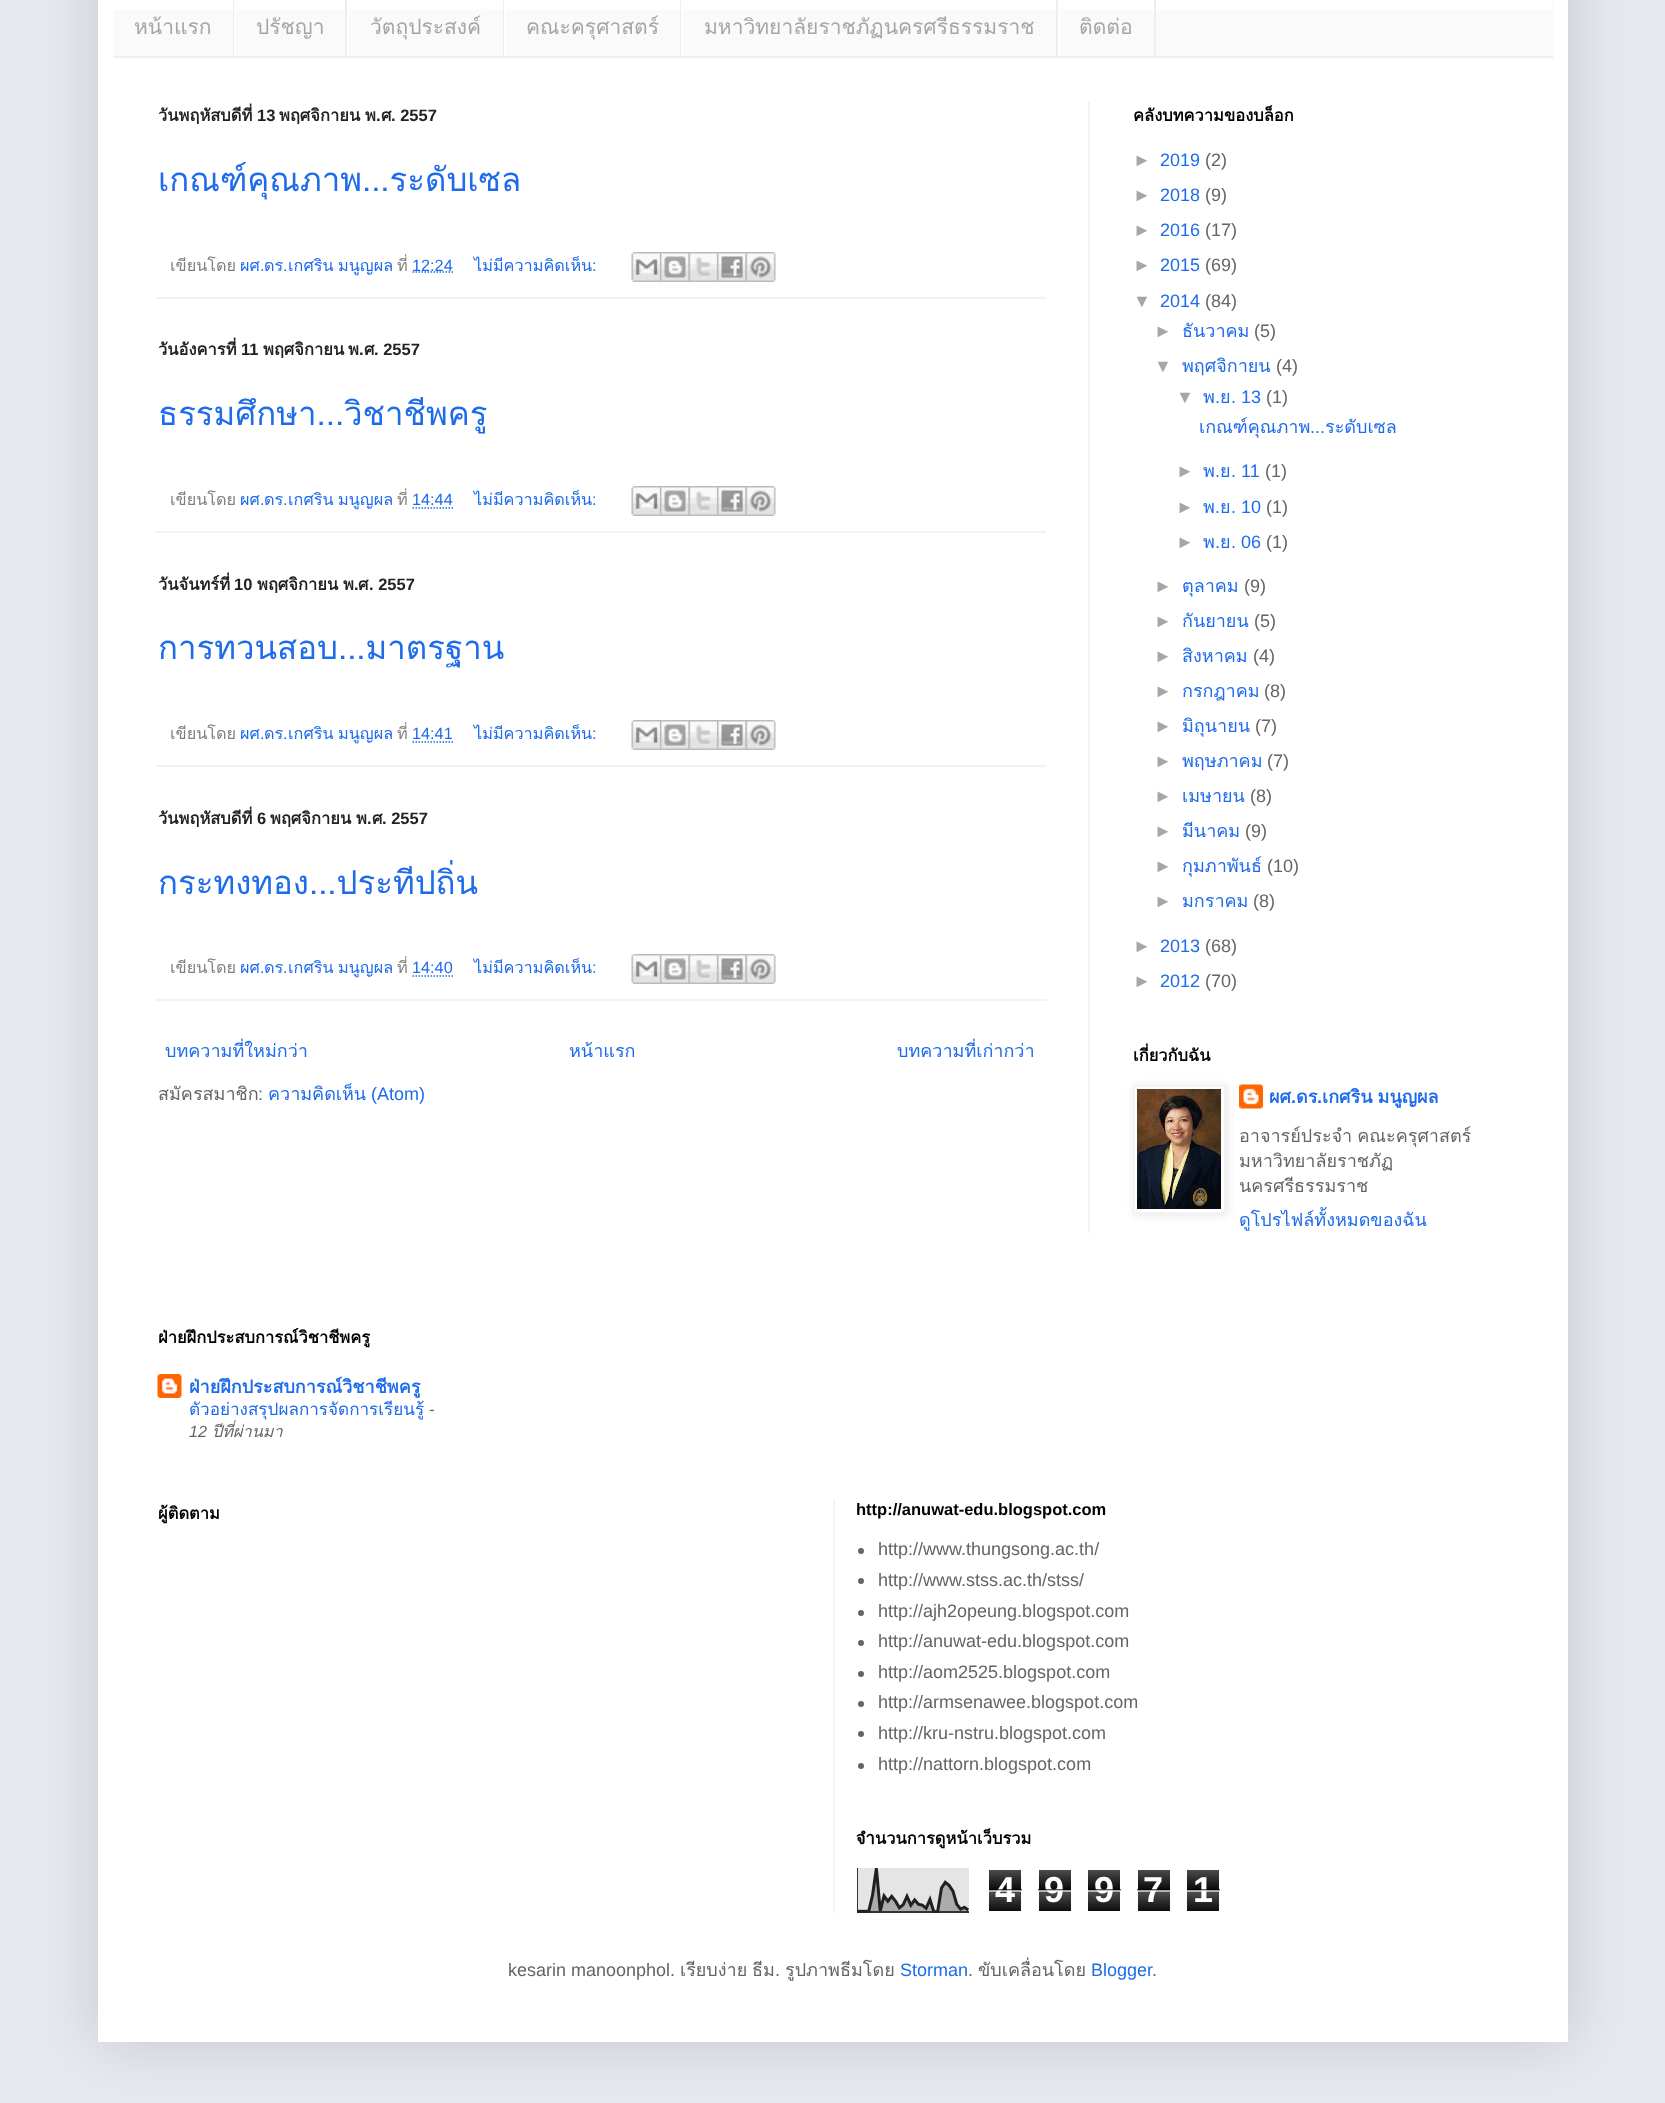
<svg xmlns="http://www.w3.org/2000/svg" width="1665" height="2103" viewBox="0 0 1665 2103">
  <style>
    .t1 { font: 21px Loma; fill: #a6a6a6; }
    .t2 { font: bold 16.5px Loma; fill: #222; }
    .t3 { font: bold 16.5px Liberation Sans; fill: #222; }
    .t4 { font: 33px Loma; fill: #1e6bec; }
    .t5 { font: 16.25px Loma; fill: #7f7f7f; }
    .t6 { font: 16.25px Loma; fill: #1e6bec; }
    .t7 { font: 16.25px Liberation Sans; fill: #1e6bec; }
    .t8 { font: 18px Loma; fill: #1e6bec; }
    .t9 { font: 18px Loma; fill: #656565; }
    .t10 { font: 18px Liberation Sans; fill: #656565; }
    .t11 { font: 18px Liberation Sans; fill: #1e6bec; }
    .t12 { font: bold 16.5px Loma; fill: #000; }
    .t13 { font: 18px Liberation Sans; fill: #a6a6a6; }
    .t14 { font: bold 18px Loma; fill: #1e6bec; }
    .t15 { font: bold 18px Liberation Sans; fill: #1e6bec; }
    .t16 { font: 17.1px Loma; fill: #1e6bec; }
    .t17 { font: 17.1px Liberation Sans; fill: #656565; }
    .t18 { font: italic 16.25px Liberation Sans; fill: #656565; }
    .t19 { font: italic 16.25px Loma; fill: #656565; }
    .t20 { font: bold 16.5px Liberation Sans; fill: #000; }
    .t21 { font: bold 36px Liberation Sans; fill: #fff; }
  </style>
  <rect width="100%" height="100%" fill="#e6e9ee"/>
  <rect x="98" y="-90" width="1470" height="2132" fill="#00000026" filter="blur(30px)"/>
  <rect x="98" y="0" width="1470" height="2042" fill="#fff"/>
  <rect x="113" y="0" width="1440" height="56" fill="#fafafa"/>
  <image x="113" y="0" width="1439" height="10" href="images/1.png"/>
  <rect x="113" y="56" width="1440" height="2" fill="#eee"/>
  <rect x="233" y="0" width="1" height="56" fill="#eee"/>
  <text x="134" y="34" class="t1">หน้าแรก</text>
  <rect x="345" y="0" width="2" height="56" fill="#eee"/>
  <rect x="234" y="10" width="2" height="46" fill="#fff"/>
  <text x="256" y="34" class="t1">ปรัชญา</text>
  <rect x="503" y="0" width="1" height="56" fill="#eee"/>
  <rect x="347" y="10" width="2" height="46" fill="#fff"/>
  <text x="370" y="34" class="t1">วัตถุประสงค์</text>
  <rect x="680" y="0" width="1" height="56" fill="#eee"/>
  <rect x="504" y="10" width="2" height="46" fill="#fff"/>
  <text x="526" y="34" class="t1">คณะครุศาสตร์</text>
  <rect x="1056" y="0" width="2" height="56" fill="#eee"/>
  <rect x="681" y="10" width="2" height="46" fill="#fff"/>
  <text x="704" y="34" class="t1">มหาวิทยาลัยราชภัฏนครศรีธรรมราช</text>
  <rect x="1154" y="0" width="2" height="56" fill="#eee"/>
  <rect x="1058" y="10" width="2" height="46" fill="#fff"/>
  <text x="1079" y="34" class="t1">ติดต่อ</text>
  <rect x="1088" y="102" width="2" height="1131" fill="#f3f3f3"/>
  <text x="158" y="121" class="t2">วันพฤหัสบดีที่</text>
  <text x="257" y="121" class="t3">13</text>
  <text x="279" y="121" class="t2">พฤศจิกายน</text>
  <text x="365" y="121" class="t2">พ</text>
  <text x="376" y="121" class="t3">.</text>
  <text x="381" y="121" class="t2">ศ</text>
  <text x="391" y="121" class="t3">. 2557</text>
  <text x="158" y="191" class="t4">เกณฑ์คุณภาพ...ระดับเซล</text>
  <rect x="155" y="297" width="891" height="2" fill="#f3f3f3"/>
  <text x="170" y="271" class="t5">เขียนโดย</text>
  <text x="240" y="271" class="t6">ผศ</text>
  <text x="260" y="271" class="t7">.</text>
  <text x="264" y="271" class="t6">ดร</text>
  <text x="283" y="271" class="t7">.</text>
  <text x="288" y="271" word-spacing="-1" class="t6">เกศริน มนูญผล</text>
  <text x="397" y="271" class="t5">ที่</text>
  <text x="412" y="271" class="t7">12:24</text>
  <path d="M412.5 272H453" fill="none" stroke="#1e6bec" stroke-width="1.5" stroke-dasharray="1.5 1.5"/>
  <text x="474" y="271" class="t6">ไม่มีความคิดเห็น</text>
  <text x="592" y="271" class="t7">:</text>
  <image x="631" y="252" width="29" height="30" href="images/2.png"/>
  <image x="660" y="252" width="29" height="30" href="images/3.png"/>
  <image x="688" y="252" width="29" height="30" href="images/4.png"/>
  <image x="717" y="252" width="29" height="30" href="images/5.png"/>
  <image x="745" y="252" width="31" height="30" href="images/6.png"/>
  <text x="158" y="355" class="t2">วันอังคารที่</text>
  <text x="241" y="355" class="t3">11</text>
  <text x="263" y="355" class="t2">พฤศจิกายน</text>
  <text x="348" y="355" class="t2">พ</text>
  <text x="359" y="355" class="t3">.</text>
  <text x="364" y="355" class="t2">ศ</text>
  <text x="374" y="355" class="t3">. 2557</text>
  <text x="158" y="425" class="t4">ธรรมศึกษา...วิชาชีพครู</text>
  <rect x="155" y="531" width="891" height="2" fill="#f3f3f3"/>
  <text x="170" y="505" class="t5">เขียนโดย</text>
  <text x="240" y="505" class="t6">ผศ</text>
  <text x="260" y="505" class="t7">.</text>
  <text x="264" y="505" class="t6">ดร</text>
  <text x="283" y="505" class="t7">.</text>
  <text x="288" y="505" word-spacing="-1" class="t6">เกศริน มนูญผล</text>
  <text x="397" y="505" class="t5">ที่</text>
  <text x="412" y="505" class="t7">14:44</text>
  <path d="M412.5 508H453" fill="none" stroke="#1e6bec" stroke-width="1.5" stroke-dasharray="1.5 1.5"/>
  <text x="474" y="505" class="t6">ไม่มีความคิดเห็น</text>
  <text x="592" y="505" class="t7">:</text>
  <image x="631" y="486" width="29" height="30" href="images/2.png"/>
  <image x="660" y="486" width="29" height="30" href="images/3.png"/>
  <image x="688" y="486" width="29" height="30" href="images/4.png"/>
  <image x="717" y="486" width="29" height="30" href="images/5.png"/>
  <image x="745" y="486" width="31" height="30" href="images/6.png"/>
  <text x="158" y="590" class="t2">วันจันทร์ที่</text>
  <text x="234" y="590" class="t3">10</text>
  <text x="257" y="590" class="t2">พฤศจิกายน</text>
  <text x="343" y="590" class="t2">พ</text>
  <text x="354" y="590" class="t3">.</text>
  <text x="358" y="590" class="t2">ศ</text>
  <text x="369" y="590" class="t3">. 2557</text>
  <text x="158" y="659" class="t4">การทวนสอบ...มาตรฐาน</text>
  <rect x="155" y="765" width="891" height="2" fill="#f3f3f3"/>
  <text x="170" y="739" class="t5">เขียนโดย</text>
  <text x="240" y="739" class="t6">ผศ</text>
  <text x="260" y="739" class="t7">.</text>
  <text x="264" y="739" class="t6">ดร</text>
  <text x="283" y="739" class="t7">.</text>
  <text x="288" y="739" word-spacing="-1" class="t6">เกศริน มนูญผล</text>
  <text x="397" y="739" class="t5">ที่</text>
  <text x="412" y="739" class="t7">14:41</text>
  <path d="M412.5 742H453" fill="none" stroke="#1e6bec" stroke-width="1.5" stroke-dasharray="1.5 1.5"/>
  <text x="474" y="739" class="t6">ไม่มีความคิดเห็น</text>
  <text x="592" y="739" class="t7">:</text>
  <image x="631" y="720" width="29" height="30" href="images/2.png"/>
  <image x="660" y="720" width="29" height="30" href="images/3.png"/>
  <image x="688" y="720" width="29" height="30" href="images/4.png"/>
  <image x="717" y="720" width="29" height="30" href="images/5.png"/>
  <image x="745" y="720" width="31" height="30" href="images/6.png"/>
  <text x="158" y="824" class="t2">วันพฤหัสบดีที่</text>
  <text x="257" y="824" class="t3">6</text>
  <text x="270" y="824" class="t2">พฤศจิกายน</text>
  <text x="356" y="824" class="t2">พ</text>
  <text x="367" y="824" class="t3">.</text>
  <text x="372" y="824" class="t2">ศ</text>
  <text x="382" y="824" class="t3">. 2557</text>
  <text x="158" y="894" class="t4">กระทงทอง...ประทีปถิ่น</text>
  <rect x="155" y="999" width="891" height="2" fill="#f3f3f3"/>
  <text x="170" y="973" class="t5">เขียนโดย</text>
  <text x="240" y="973" class="t6">ผศ</text>
  <text x="260" y="973" class="t7">.</text>
  <text x="264" y="973" class="t6">ดร</text>
  <text x="283" y="973" class="t7">.</text>
  <text x="288" y="973" word-spacing="-1" class="t6">เกศริน มนูญผล</text>
  <text x="397" y="973" class="t5">ที่</text>
  <text x="412" y="973" class="t7">14:40</text>
  <path d="M412.5 976H453" fill="none" stroke="#1e6bec" stroke-width="1.5" stroke-dasharray="1.5 1.5"/>
  <text x="474" y="973" class="t6">ไม่มีความคิดเห็น</text>
  <text x="592" y="973" class="t7">:</text>
  <image x="631" y="954" width="29" height="30" href="images/2.png"/>
  <image x="660" y="954" width="29" height="30" href="images/3.png"/>
  <image x="688" y="954" width="29" height="30" href="images/4.png"/>
  <image x="717" y="954" width="29" height="30" href="images/5.png"/>
  <image x="745" y="954" width="31" height="30" href="images/6.png"/>
  <text x="165" y="1057" class="t8">บทความที่ใหม่กว่า</text>
  <text x="569" y="1057" class="t8">หน้าแรก</text>
  <text x="897" y="1057" class="t8">บทความที่เก่ากว่า</text>
  <text x="158" y="1100" class="t9">สมัครสมาชิก</text>
  <text x="258" y="1100" class="t10">:</text>
  <text x="268" y="1100" class="t8">ความคิดเห็น</text>
  <text x="371" y="1100" class="t11">(Atom)</text>
  <text x="1133" y="121" class="t12">คลังบทความของบล็อก</text>
  <text x="1133" y="166" class="t13">►</text>
  <text x="1160" y="166" class="t11">2019</text>
  <text x="1205" y="166" class="t10">(2)</text>
  <text x="1133" y="201" class="t13">►</text>
  <text x="1160" y="201" class="t11">2018</text>
  <text x="1205" y="201" class="t10">(9)</text>
  <text x="1133" y="236" class="t13">►</text>
  <text x="1160" y="236" class="t11">2016</text>
  <text x="1205" y="236" class="t10">(17)</text>
  <text x="1133" y="271" class="t13">►</text>
  <text x="1160" y="271" class="t11">2015</text>
  <text x="1205" y="271" class="t10">(69)</text>
  <text x="1133" y="307" class="t13">▼</text>
  <text x="1160" y="307" class="t11">2014</text>
  <text x="1205" y="307" class="t10">(84)</text>
  <text x="1154" y="337" class="t13">►</text>
  <text x="1182" y="337" class="t8">ธันวาคม</text>
  <text x="1254" y="337" class="t10">(5)</text>
  <text x="1154" y="372" class="t13">▼</text>
  <text x="1182" y="372" class="t8">พฤศจิกายน</text>
  <text x="1276" y="372" class="t10">(4)</text>
  <text x="1176" y="403" class="t13">▼</text>
  <text x="1203" y="403" class="t8">พ</text>
  <text x="1215" y="403" class="t11">.</text>
  <text x="1220" y="403" class="t8">ย</text>
  <text x="1231" y="403" class="t11">. 13</text>
  <text x="1266" y="403" class="t10">(1)</text>
  <text x="1199" y="433" class="t8">เกณฑ์คุณภาพ</text>
  <text x="1310" y="433" class="t11">...</text>
  <text x="1325" y="433" class="t8">ระดับเซล</text>
  <text x="1176" y="477" class="t13">►</text>
  <text x="1203" y="477" class="t8">พ</text>
  <text x="1215" y="477" class="t11">.</text>
  <text x="1220" y="477" class="t8">ย</text>
  <text x="1231" y="477" class="t11">. 11</text>
  <text x="1265" y="477" class="t10">(1)</text>
  <text x="1176" y="513" class="t13">►</text>
  <text x="1203" y="513" class="t8">พ</text>
  <text x="1215" y="513" class="t11">.</text>
  <text x="1220" y="513" class="t8">ย</text>
  <text x="1231" y="513" class="t11">. 10</text>
  <text x="1266" y="513" class="t10">(1)</text>
  <text x="1176" y="548" class="t13">►</text>
  <text x="1203" y="548" class="t8">พ</text>
  <text x="1215" y="548" class="t11">.</text>
  <text x="1220" y="548" class="t8">ย</text>
  <text x="1231" y="548" class="t11">. 06</text>
  <text x="1266" y="548" class="t10">(1)</text>
  <text x="1154" y="592" class="t13">►</text>
  <text x="1182" y="592" class="t8">ตุลาคม</text>
  <text x="1244" y="592" class="t10">(9)</text>
  <text x="1154" y="627" class="t13">►</text>
  <text x="1182" y="627" class="t8">กันยายน</text>
  <text x="1254" y="627" class="t10">(5)</text>
  <text x="1154" y="662" class="t13">►</text>
  <text x="1182" y="662" class="t8">สิงหาคม</text>
  <text x="1253" y="662" class="t10">(4)</text>
  <text x="1154" y="697" class="t13">►</text>
  <text x="1182" y="697" class="t8">กรกฎาคม</text>
  <text x="1264" y="697" class="t10">(8)</text>
  <text x="1154" y="732" class="t13">►</text>
  <text x="1182" y="732" class="t8">มิถุนายน</text>
  <text x="1255" y="732" class="t10">(7)</text>
  <text x="1154" y="767" class="t13">►</text>
  <text x="1182" y="767" class="t8">พฤษภาคม</text>
  <text x="1267" y="767" class="t10">(7)</text>
  <text x="1154" y="802" class="t13">►</text>
  <text x="1182" y="802" class="t8">เมษายน</text>
  <text x="1250" y="802" class="t10">(8)</text>
  <text x="1154" y="837" class="t13">►</text>
  <text x="1182" y="837" class="t8">มีนาคม</text>
  <text x="1245" y="837" class="t10">(9)</text>
  <text x="1154" y="872" class="t13">►</text>
  <text x="1182" y="872" class="t8">กุมภาพันธ์</text>
  <text x="1267" y="872" class="t10">(10)</text>
  <text x="1154" y="907" class="t13">►</text>
  <text x="1182" y="907" class="t8">มกราคม</text>
  <text x="1253" y="907" class="t10">(8)</text>
  <text x="1133" y="952" class="t13">►</text>
  <text x="1160" y="952" class="t11">2013</text>
  <text x="1205" y="952" class="t10">(68)</text>
  <text x="1133" y="987" class="t13">►</text>
  <text x="1160" y="987" class="t11">2012</text>
  <text x="1205" y="987" class="t10">(70)</text>
  <text x="1133" y="1061" class="t12">เกี่ยวกับฉัน</text>
  <image x="1239" y="1084" width="24" height="25" href="images/8.png"/>
  <rect x="1134" y="1086" width="93" height="129" fill="#0000001a" filter="blur(4px)"/>
  <rect x="1134" y="1086" width="91" height="127" fill="#fff" stroke="#f3f3f3" stroke-width="2"/>
  <image x="1137" y="1089" width="84" height="120" href="images/7.png"/>
  <text x="1269" y="1103" class="t14">ผศ</text>
  <text x="1291" y="1103" class="t15">.</text>
  <text x="1296" y="1103" class="t14">ดร</text>
  <text x="1317" y="1103" class="t15">.</text>
  <text x="1322" y="1103" word-spacing="-1" class="t14">เกศริน มนูญผล</text>
  <text x="1239" y="1142" word-spacing="-1" class="t9">อาจารย์ประจำ คณะครุศาสตร์</text>
  <text x="1239" y="1167" class="t9">มหาวิทยาลัยราชภัฏ</text>
  <text x="1239" y="1192" class="t9">นครศรีธรรมราช</text>
  <text x="1239" y="1226" class="t8">ดูโปรไฟล์ทั้งหมดของฉัน</text>
  <text x="158" y="1343" class="t12">ฝ่ายฝึกประสบการณ์วิชาชีพครู</text>
  <image x="157" y="1374" width="25" height="24" href="images/9.png"/>
  <text x="189" y="1393" class="t14">ฝ่ายฝึกประสบการณ์วิชาชีพครู</text>
  <text x="189" y="1415" class="t16">ตัวอย่างสรุปผลการจัดการเรียนรู้</text>
  <text x="429" y="1415" class="t17">-</text>
  <text x="189" y="1437" class="t18">12</text>
  <text x="212" y="1437" class="t19">ปีที่ผ่านมา</text>
  <text x="158" y="1519" class="t12">ผู้ติดตาม</text>
  <rect x="833" y="1500" width="2" height="413" fill="#f3f3f3"/>
  <text x="856" y="1515" class="t20">http://anuwat-edu.blogspot.com</text>
  <circle cx="861" cy="1551" r="3" fill="#656565"/>
  <text x="878" y="1555" class="t10">http://www.thungsong.ac.th/</text>
  <circle cx="861" cy="1581" r="3" fill="#656565"/>
  <text x="878" y="1586" class="t10">http://www.stss.ac.th/stss/</text>
  <circle cx="861" cy="1613" r="3" fill="#656565"/>
  <text x="878" y="1617" class="t10">http://ajh2opeung.blogspot.com</text>
  <circle cx="861" cy="1643" r="3" fill="#656565"/>
  <text x="878" y="1647" class="t10">http://anuwat-edu.blogspot.com</text>
  <circle cx="861" cy="1674" r="3" fill="#656565"/>
  <text x="878" y="1678" class="t10">http://aom2525.blogspot.com</text>
  <circle cx="861" cy="1704" r="3" fill="#656565"/>
  <text x="878" y="1708" class="t10">http://armsenawee.blogspot.com</text>
  <circle cx="861" cy="1734" r="3" fill="#656565"/>
  <text x="878" y="1739" class="t10">http://kru-nstru.blogspot.com</text>
  <circle cx="861" cy="1766" r="3" fill="#656565"/>
  <text x="878" y="1770" class="t10">http://nattorn.blogspot.com</text>
  <text x="856" y="1844" class="t12">จำนวนการดูหน้าเว็บรวม</text>
  <image x="857" y="1868" width="112" height="45" href="images/10.png"/>
  <image x="989" y="1870" width="32" height="41" href="images/11.png"/>
  <text x="995" y="1902" class="t21">4</text>
  <rect x="989" y="1889" width="33" height="2" fill="#000000a6"/>
  <rect x="989" y="1890" width="33" height="2" fill="#ffffffa6"/>
  <image x="1039" y="1870" width="32" height="41" href="images/12.png"/>
  <text x="1044" y="1902" class="t21">9</text>
  <rect x="1038" y="1889" width="33" height="2" fill="#000000a6"/>
  <rect x="1038" y="1890" width="33" height="2" fill="#ffffffa6"/>
  <image x="1088" y="1870" width="32" height="41" href="images/11.png"/>
  <text x="1094" y="1902" class="t21">9</text>
  <rect x="1088" y="1889" width="33" height="2" fill="#000000a6"/>
  <rect x="1088" y="1890" width="33" height="2" fill="#ffffffa6"/>
  <image x="1138" y="1870" width="32" height="41" href="images/12.png"/>
  <text x="1143" y="1902" class="t21">7</text>
  <rect x="1137" y="1889" width="33" height="2" fill="#000000a6"/>
  <rect x="1137" y="1890" width="33" height="2" fill="#ffffffa6"/>
  <image x="1187" y="1870" width="32" height="41" href="images/11.png"/>
  <text x="1193" y="1902" class="t21">1</text>
  <rect x="1187" y="1889" width="33" height="2" fill="#000000a6"/>
  <rect x="1187" y="1890" width="33" height="2" fill="#ffffffa6"/>
  <text x="508" y="1976" class="t10">kesarin manoonphol.</text>
  <text x="680" y="1976" class="t9">เรียบง่าย</text>
  <text x="752" y="1976" class="t9">ธีม</text>
  <text x="775" y="1976" class="t10">.</text>
  <text x="785" y="1976" class="t9">รูปภาพธีมโดย</text>
  <text x="900" y="1976" class="t11">Storman</text>
  <text x="968" y="1976" class="t10">.</text>
  <text x="978" y="1976" class="t9">ขับเคลื่อนโดย</text>
  <text x="1091" y="1976" class="t11">Blogger</text>
  <text x="1152" y="1976" class="t10">.</text>
</svg>
